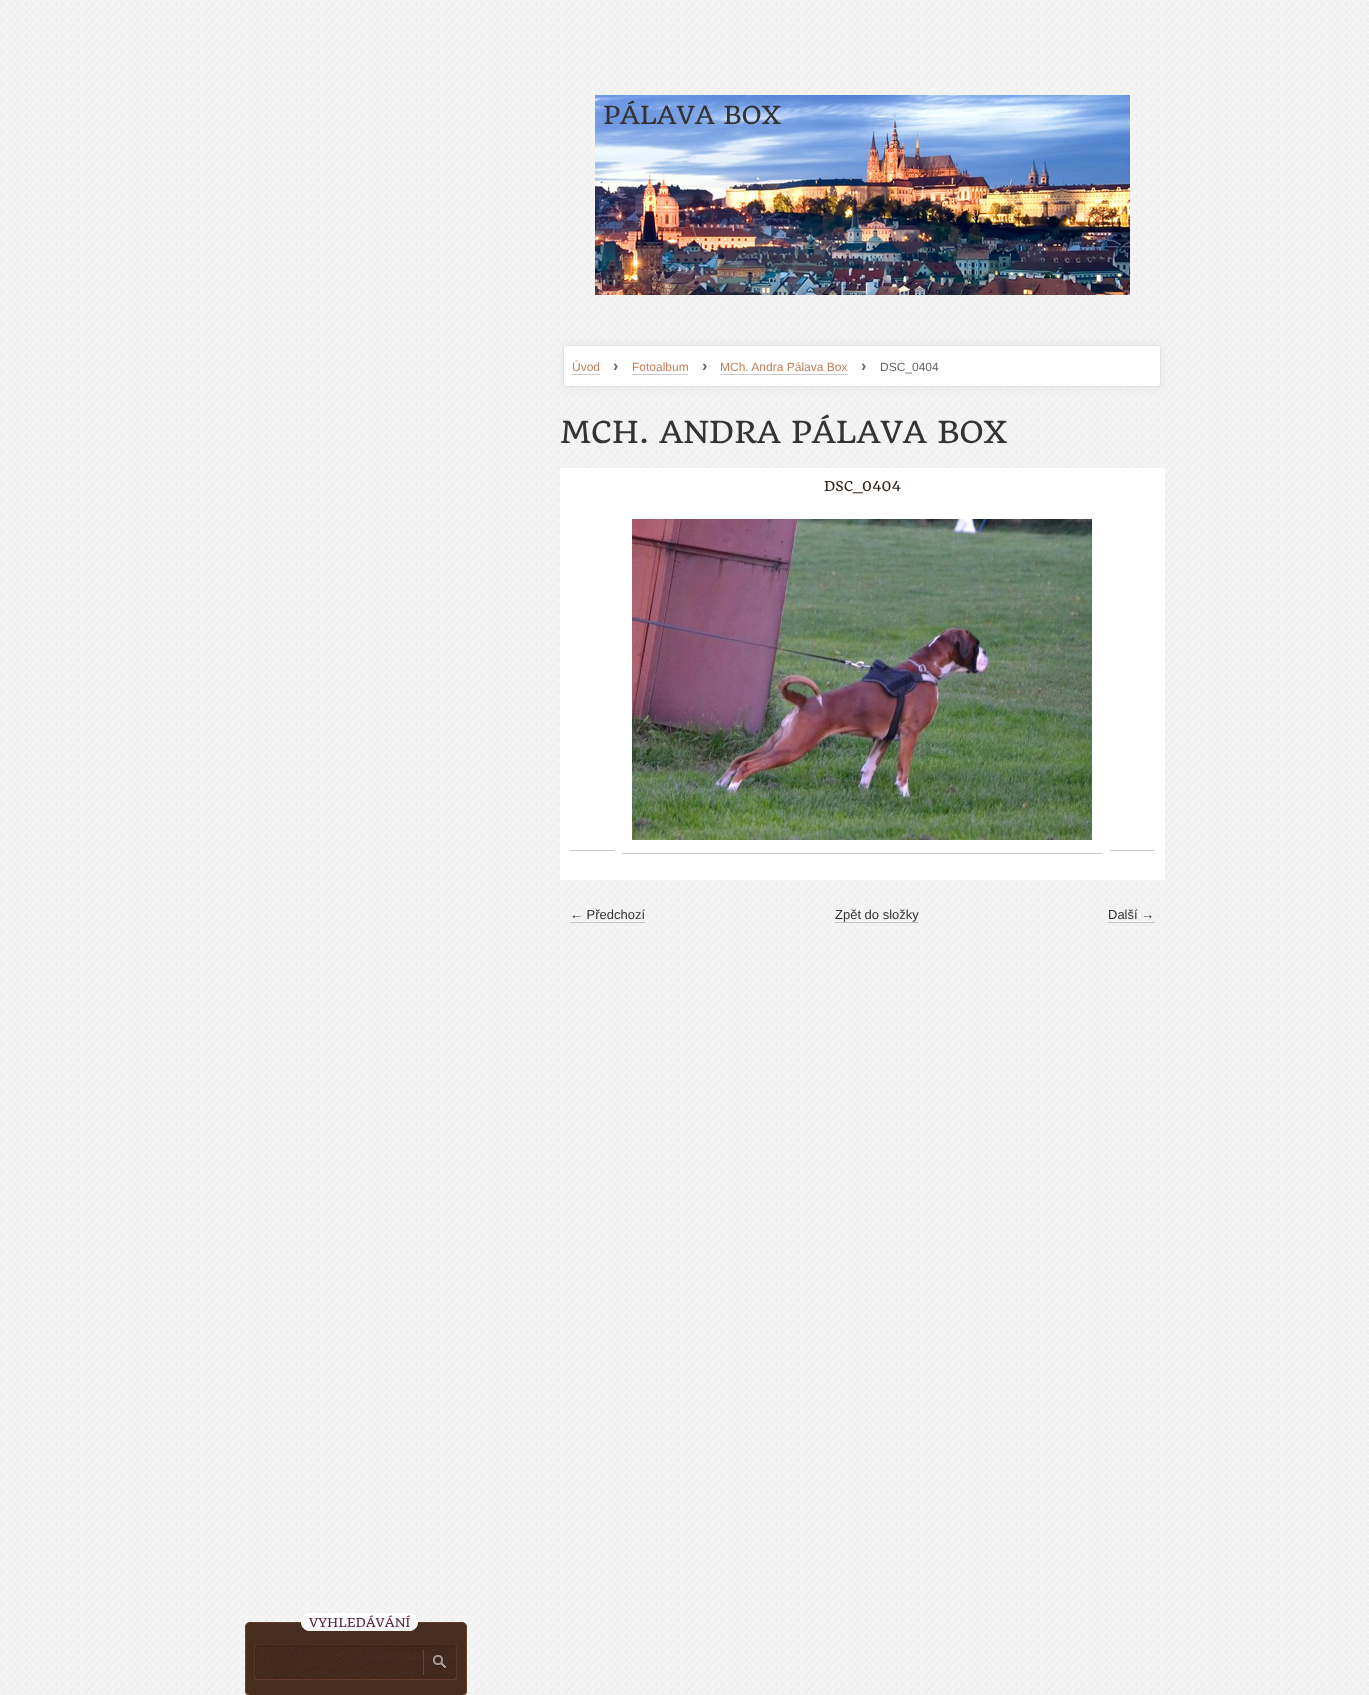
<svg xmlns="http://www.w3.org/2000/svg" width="1369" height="1695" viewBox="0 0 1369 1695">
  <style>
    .t1 { font: 28px Quando; fill: #333; }
    .t2 { font: 12px Liberation Sans; fill: #c48059; }
    .t3 { font: bold 16px Liberation Sans; fill: #666; }
    .t4 { font: 12px Liberation Sans; fill: #666; }
    .t5 { font: 34px Quando; fill: #333; }
    .t6 { font: 15.25px Quando; fill: #33251b; }
    .t7 { font: 13px Liberation Sans; fill: #333; }
    .t8 { font: 14px Quando; fill: #592c46; }
  </style>
  <defs>
    <clipPath id="clip1"><rect x="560" y="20" width="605" height="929"/></clipPath>
  </defs>
  <rect width="100%" height="100%" fill="#f2f2f2"/>
  <image x="0" y="0" width="1369" height="1694" href="images/1.png"/>
  <image x="595" y="95" width="535" height="200" href="images/2.png"/>
  <text x="603" y="124" class="t1">PÁLAVA BOX</text>
  <g clip-path="url(#clip1)">
    <rect x="563" y="345" width="598" height="42" rx="3" fill="#e6e6e6" filter="blur(5px)"/>
  </g>
  <rect x="563.5" y="345.5" width="597" height="41" rx="2.5" fill="#fff" stroke="#e3e3e3"/>
  <text x="572" y="371" class="t2">Úvod</text>
  <rect x="572" y="374" width="28" height="1" fill="#cbcbcb"/>
  <text x="613" y="371" class="t3">›</text>
  <text x="632" y="371" class="t2">Fotoalbum</text>
  <rect x="632" y="374" width="56" height="1" fill="#cbcbcb"/>
  <text x="702" y="371" class="t3">›</text>
  <text x="720" y="371" class="t2">MCh. Andra Pálava Box</text>
  <rect x="720" y="374" width="128" height="1" fill="#cbcbcb"/>
  <text x="861" y="371" class="t3">›</text>
  <text x="880" y="371" class="t4">DSC_0404</text>
  <text x="560" y="443" class="t5">MCH. ANDRA PÁLAVA BOX</text>
  <rect x="560" y="468" width="605" height="412" fill="#fff"/>
  <text x="824" y="491" class="t6">DSC_0404</text>
  <image x="632" y="519" width="460" height="321" href="images/3.png"/>
  <rect x="570" y="850" width="45" height="1" fill="#cbcbcb"/>
  <rect x="1110" y="850" width="45" height="1" fill="#cbcbcb"/>
  <rect x="622" y="853" width="480" height="1" fill="#cbcbcb"/>
  <text x="570" y="919" class="t7">← Předchozí</text>
  <rect x="570" y="922" width="75" height="1" fill="#96969680"/>
  <text x="835" y="919" class="t7">Zpět do složky</text>
  <rect x="835" y="922" width="83" height="1" fill="#96969680"/>
  <text x="1108" y="919" class="t7">Další →</text>
  <rect x="1108" y="922" width="47" height="1" fill="#96969680"/>
  <rect x="245" y="1622" width="222" height="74" rx="5" fill="#472c20"/>
  <path d="M247 1624L250 1622.5H462.5L465 1624" fill="none" stroke="#633b2a"/>
  <path d="M465 1624L466.5 1626.5V1691.5L465 1694" fill="none" stroke="#6a402d"/>
  <path d="M465 1694L462.5 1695.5H285.5H250L247 1694" fill="none" stroke="#82513b"/>
  <path d="M247 1694L245.5 1691.5V1626.5L247 1624" fill="none" stroke="#6a402d"/>
  <image x="301" y="1613" width="109" height="18" href="images/4.png"/>
  <text x="309" y="1627" class="t8">VYHLEDÁVÁNÍ</text>
  <image x="410" y="1613" width="8" height="18" href="images/5.png"/>
  <image x="254" y="1644" width="168" height="36" href="images/6.png"/>
  <image x="422" y="1644" width="35" height="36" href="images/7.png"/>
</svg>
